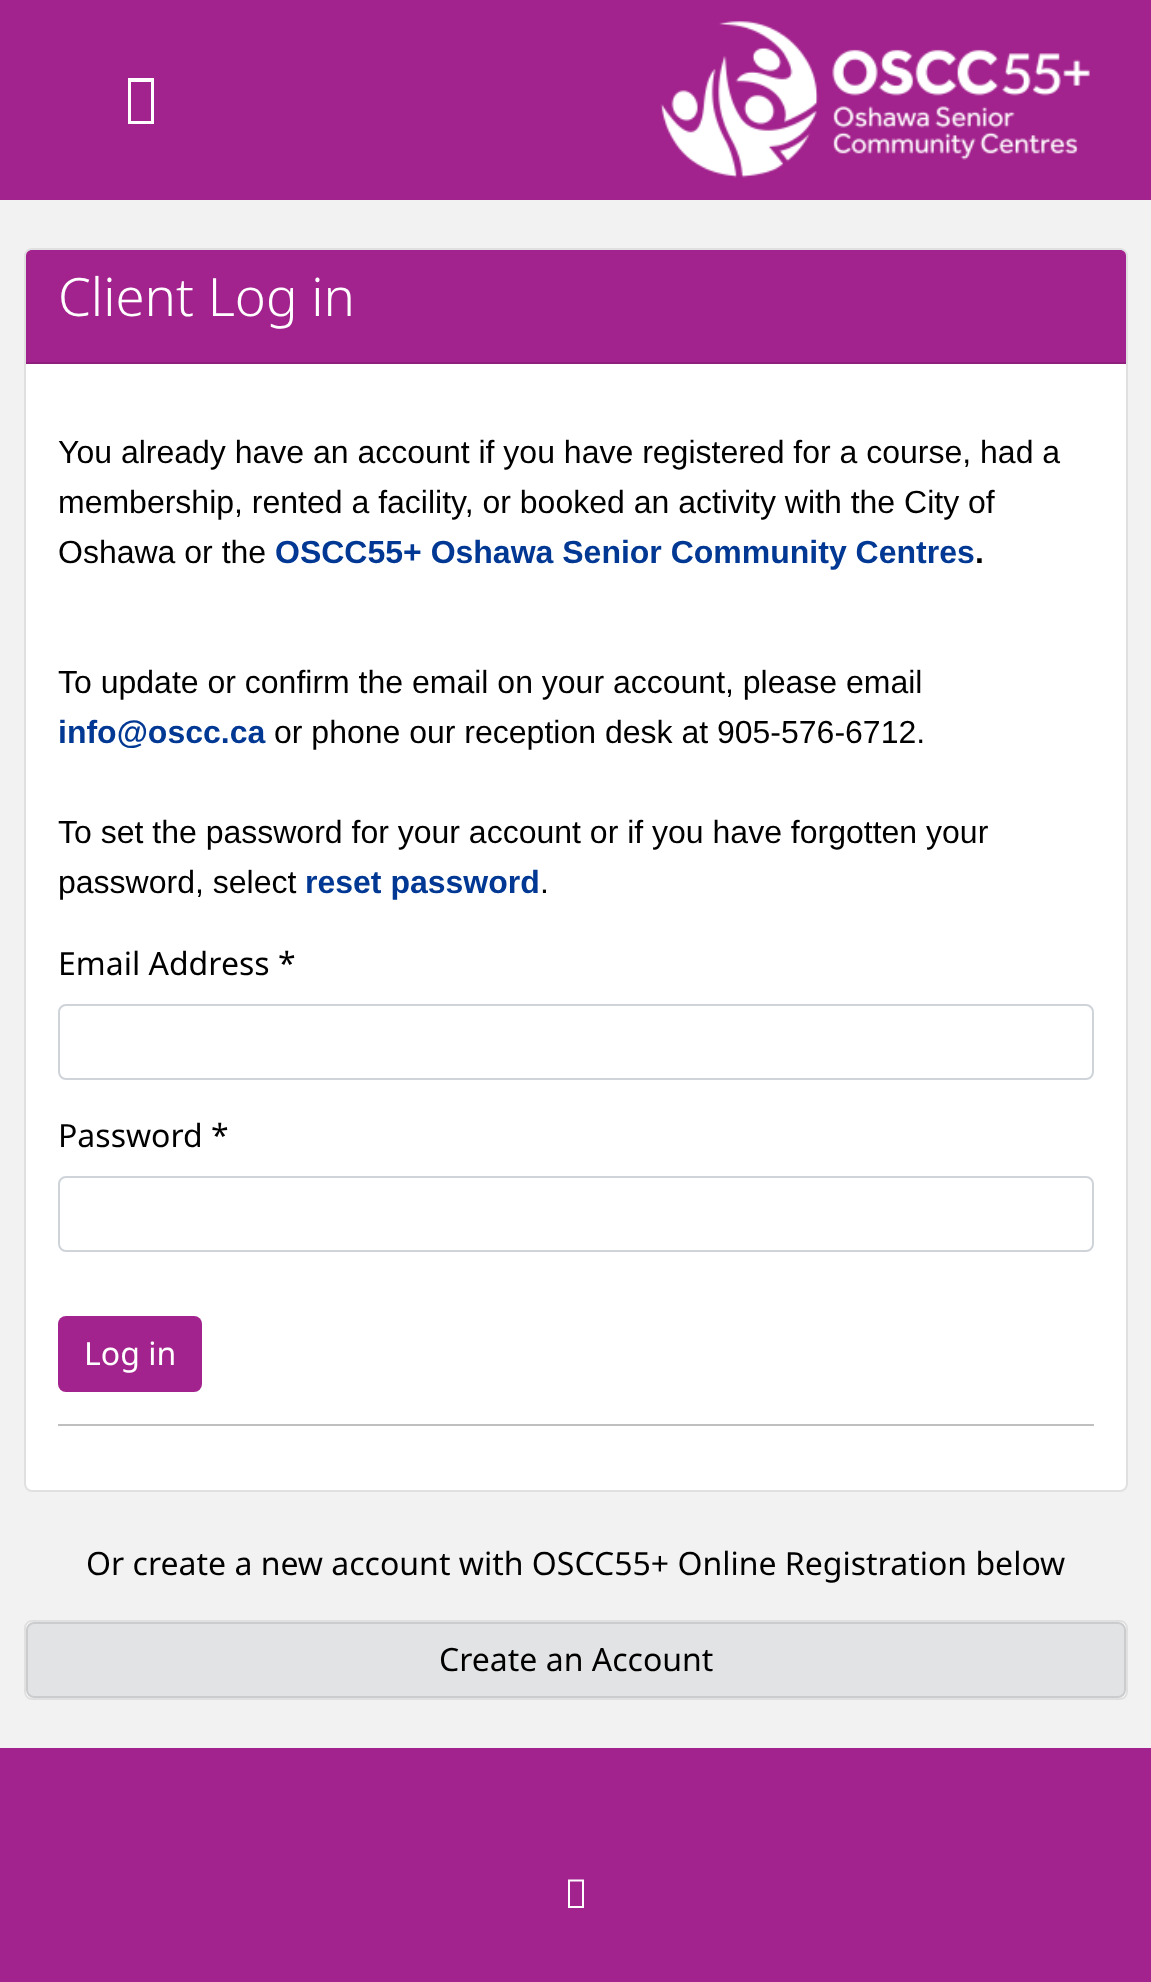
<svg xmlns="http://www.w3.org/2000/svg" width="1151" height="1982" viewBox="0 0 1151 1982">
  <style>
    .t1 { font: 300 52.75px Noto Sans; fill: #fff; }
    .t2 { font: 32px Liberation Sans; fill: #000; }
    .t3 { font: bold 32px Liberation Sans; fill: #003893; }
    .t4 { font: bold 32px Liberation Sans; fill: #000; }
    .t5 { font: 32px Noto Sans; fill: #000; }
    .t6 { font: 32px Noto Sans; fill: #fff; }
  </style>
  <rect width="100%" height="100%" fill="#f2f2f2"/>
  <rect x="0" y="0" width="1151" height="200" fill="#a3238e"/>
  <path d="M128 124V78H154V124ZM131 121H151V82H131Z" fill="#fff"/>
  <image x="660" y="21" width="430" height="157" href="images/1.png"/>
  <rect x="24" y="248" width="1104" height="1244" rx="8" fill="#fff"/>
  <rect x="25" y="249" width="1102" height="1242" rx="7" fill="none" stroke="#0000001f" stroke-width="2"/>
  <path d="M32 250H1120C1123.5 250 1126 252.5 1126 256V364H26V256C26 252.5 28.5 250 32 250Z" fill="#a3238e"/>
  <rect x="26" y="362" width="1100" height="2" fill="#8f1f7c"/>
  <text x="58" y="316" class="t1">Client Log in</text>
  <text x="58" y="463" class="t2">You already have an account if you have registered for a course, had a</text>
  <text x="58" y="513" class="t2">membership, rented a facility, or booked an activity with the City of</text>
  <text x="58" y="563" class="t2">Oshawa or the</text>
  <text x="275" y="563" class="t3">OSCC55+ Oshawa Senior Community Centres</text>
  <text x="975" y="563" class="t4">.</text>
  <text x="58" y="693" class="t2">To update or confirm the email on your account, please email</text>
  <text x="58" y="743" class="t3">info@oscc.ca</text>
  <text x="274" y="743" class="t2">or phone our reception desk at 905-576-6712.</text>
  <text x="58" y="843" class="t2">To set the password for your account or if you have forgotten your</text>
  <text x="58" y="893" class="t2">password, select</text>
  <text x="305" y="893" class="t3">reset password</text>
  <text x="540" y="893" class="t2">.</text>
  <text x="58" y="975" class="t5">Email Address *</text>
  <rect x="59" y="1005" width="1034" height="74" rx="7" fill="none" stroke="#ced4da" stroke-width="2"/>
  <text x="58" y="1147" class="t5">Password *</text>
  <rect x="59" y="1177" width="1034" height="74" rx="7" fill="none" stroke="#ced4da" stroke-width="2"/>
  <rect x="58" y="1316" width="144" height="76" rx="8" fill="#a3238e"/>
  <text x="84" y="1365" class="t6">Log in</text>
  <rect x="58" y="1424" width="1036" height="2" fill="#bfbfbf"/>
  <text x="86" y="1575" class="t5">Or create a new account with OSCC55+ Online Registration below</text>
  <rect x="24" y="1620" width="1104" height="80" rx="8" fill="#fff"/>
  <rect x="25" y="1621" width="1102" height="78" rx="7" fill="none" stroke="#0000001f" stroke-width="2"/>
  <rect x="27" y="1623" width="1098" height="74" rx="7" fill="#e2e3e5" stroke="#cbccce" stroke-width="2"/>
  <text x="439" y="1671" class="t5">Create an Account</text>
  <rect x="0" y="1748" width="1151" height="234" fill="#a3238e"/>
  <path d="M568 1908V1879.5H584V1908ZM570 1906H582V1881.5H570Z" fill="#fff"/>
</svg>
